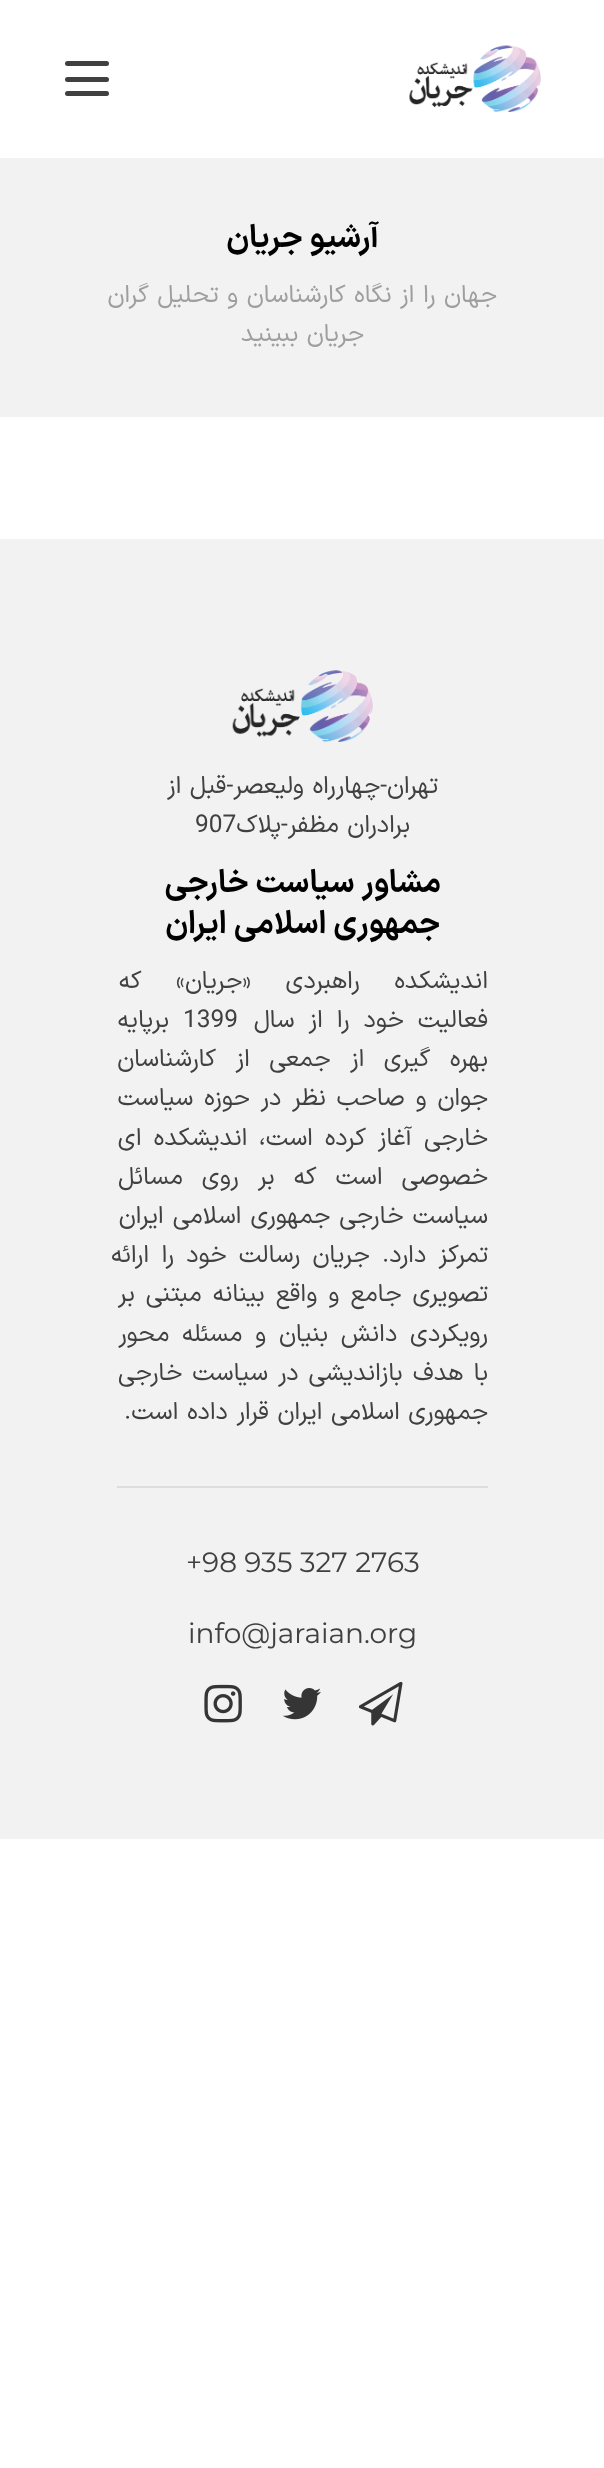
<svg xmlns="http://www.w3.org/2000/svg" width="604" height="2468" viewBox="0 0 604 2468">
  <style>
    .t1 { font: bold 31.5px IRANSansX; direction: rtl; fill: #000; }
    .t2 { font: 24.5px IRANSansX; direction: rtl; fill: #9e9e9e; }
    .t3 { font: 24.5px IRANSansX; direction: rtl; fill: #404040; }
    .t4 { font: 24.5px IRANSansX; fill: #404040; }
    .t5 { font: 28px Montserrat; fill: #404040; }
  </style>
  <rect width="100%" height="100%" fill="#fff"/>
  <image x="409" y="45" width="132" height="67" href="images/1.png"/>
  <rect x="65" y="61" width="44" height="5" rx="2.5" fill="#404040"/>
  <rect x="65" y="77" width="44" height="5" rx="2.5" fill="#404040"/>
  <rect x="65" y="91" width="44" height="5" rx="2.5" fill="#404040"/>
  <rect x="0" y="158" width="604" height="259" fill="#f2f2f2"/>
  <text x="379" y="247" class="t1">آرشیو جریان</text>
  <text x="497" y="302" class="t2">جهان را از نگاه کارشناسان و تحلیل گران</text>
  <text x="364" y="341" class="t2">جریان ببینید</text>
  <rect x="0" y="539" width="604" height="1300" fill="#f2f2f2"/>
  <image x="232" y="670" width="141" height="72" href="images/2.png"/>
  <text x="438" y="793" class="t3">تهران-چهارراه ولیعصر-قبل از</text>
  <text x="410" y="832" class="t3">برادران مظفر-پلاک</text>
  <text x="195" y="832" class="t4">907</text>
  <text x="441" y="892" class="t1">مشاور سیاست خارجی</text>
  <text x="440" y="933" class="t1">جمهوری اسلامی ایران</text>
  <text x="488" y="988" word-spacing="26" class="t3">اندیشکده راهبردی «جریان» که</text>
  <text x="488" y="1027" word-spacing="5.5" class="t3">فعالیت خود را از سال</text>
  <text x="183" y="1027" class="t4">1399</text>
  <text x="169" y="1027" class="t3">برپایه</text>
  <text x="488" y="1066" word-spacing="11" class="t3">بهره گیری از جمعی از کارشناسان</text>
  <text x="488" y="1105" word-spacing="2.25" class="t3">جوان و صاحب نظر در حوزه سیاست</text>
  <text x="488" y="1145" word-spacing="3.25" class="t3">خارجی آغاز کرده است، اندیشکده ای</text>
  <text x="488" y="1184" word-spacing="10.5" class="t3">خصوصی است که بر روی مسائل</text>
  <text x="488" y="1223" word-spacing="0.5" class="t3">سیاست خارجی جمهوری اسلامی ایران</text>
  <text x="488" y="1262" word-spacing="3.75" class="t3">تمرکز دارد. جریان رسالت خود را ارائه</text>
  <text x="488" y="1301" word-spacing="2.5" class="t3">تصویری جامع و واقع بینانه مبتنی بر</text>
  <text x="488" y="1341" word-spacing="4.25" class="t3">رویکردی دانش بنیان و مسئله محور</text>
  <text x="488" y="1380" word-spacing="1.5" class="t3">با هدف بازاندیشی در سیاست خارجی</text>
  <text x="488" y="1419" class="t3">جمهوری اسلامی ایران قرار داده است.</text>
  <rect x="117" y="1486" width="371" height="2" fill="#ddd"/>
  <text x="186" y="1572" class="t5">+98 935 327 2763</text>
  <text x="188" y="1643" class="t5">info@jaraian.org</text>
  <image x="359" y="1682" width="44" height="44" href="images/3.png"/>
  <image x="282" y="1688" width="39" height="32" href="images/4.png"/>
  <image x="204" y="1684" width="38" height="39" href="images/5.png"/>
</svg>
